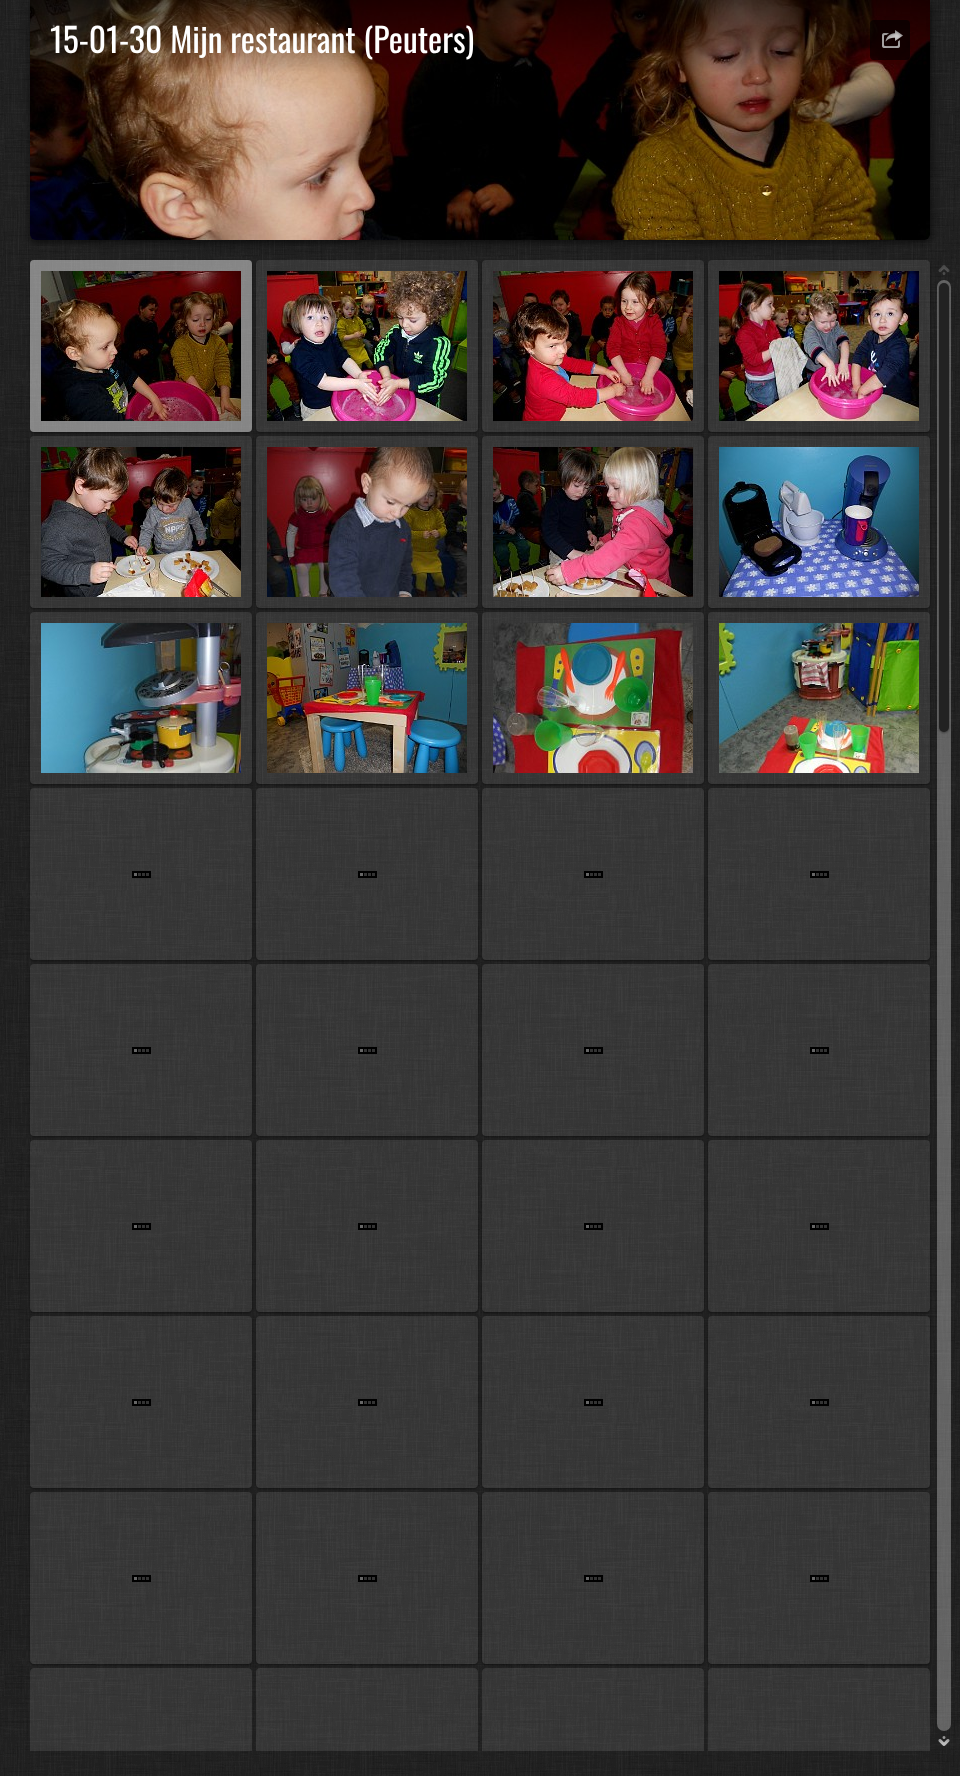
<svg xmlns="http://www.w3.org/2000/svg" width="960" height="1776" viewBox="0 0 960 1776">
  <style>
    .t1 { font: 33.6px Oswald; fill: #fff; }
  </style>
  <defs>
    <clipPath id="clip1"><path d="M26 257H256V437H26ZM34 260H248C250 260 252 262 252 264V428C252 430 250 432 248 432H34C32 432 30 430 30 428V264C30 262 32 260 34 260Z" clip-rule="evenodd"/></clipPath>
    <clipPath id="clip2"><path d="M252 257H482V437H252ZM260 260H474C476 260 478 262 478 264V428C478 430 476 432 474 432H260C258 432 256 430 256 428V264C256 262 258 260 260 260Z" clip-rule="evenodd"/></clipPath>
    <clipPath id="clip3"><path d="M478 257H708V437H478ZM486 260H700C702 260 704 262 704 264V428C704 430 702 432 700 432H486C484 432 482 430 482 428V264C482 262 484 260 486 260Z" clip-rule="evenodd"/></clipPath>
    <clipPath id="clip4"><path d="M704 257H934V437H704ZM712 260H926C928 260 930 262 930 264V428C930 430 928 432 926 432H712C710 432 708 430 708 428V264C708 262 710 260 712 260Z" clip-rule="evenodd"/></clipPath>
    <clipPath id="clip5"><path d="M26 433H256V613H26ZM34 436H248C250 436 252 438 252 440V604C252 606 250 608 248 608H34C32 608 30 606 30 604V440C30 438 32 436 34 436Z" clip-rule="evenodd"/></clipPath>
    <clipPath id="clip6"><path d="M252 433H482V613H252ZM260 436H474C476 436 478 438 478 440V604C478 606 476 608 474 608H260C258 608 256 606 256 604V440C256 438 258 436 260 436Z" clip-rule="evenodd"/></clipPath>
    <clipPath id="clip7"><path d="M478 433H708V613H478ZM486 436H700C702 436 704 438 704 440V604C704 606 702 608 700 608H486C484 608 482 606 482 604V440C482 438 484 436 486 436Z" clip-rule="evenodd"/></clipPath>
    <clipPath id="clip8"><path d="M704 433H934V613H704ZM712 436H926C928 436 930 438 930 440V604C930 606 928 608 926 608H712C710 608 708 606 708 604V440C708 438 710 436 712 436Z" clip-rule="evenodd"/></clipPath>
    <clipPath id="clip9"><path d="M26 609H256V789H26ZM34 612H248C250 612 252 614 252 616V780C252 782 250 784 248 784H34C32 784 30 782 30 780V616C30 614 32 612 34 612Z" clip-rule="evenodd"/></clipPath>
    <clipPath id="clip10"><path d="M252 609H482V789H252ZM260 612H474C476 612 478 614 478 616V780C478 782 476 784 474 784H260C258 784 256 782 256 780V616C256 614 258 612 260 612Z" clip-rule="evenodd"/></clipPath>
    <clipPath id="clip11"><path d="M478 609H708V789H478ZM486 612H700C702 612 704 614 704 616V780C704 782 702 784 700 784H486C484 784 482 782 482 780V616C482 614 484 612 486 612Z" clip-rule="evenodd"/></clipPath>
    <clipPath id="clip12"><path d="M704 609H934V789H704ZM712 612H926C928 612 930 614 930 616V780C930 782 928 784 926 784H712C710 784 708 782 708 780V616C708 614 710 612 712 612Z" clip-rule="evenodd"/></clipPath>
    <clipPath id="clip13"><path d="M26 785H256V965H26ZM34 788H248C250 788 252 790 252 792V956C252 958 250 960 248 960H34C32 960 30 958 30 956V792C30 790 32 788 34 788Z" clip-rule="evenodd"/></clipPath>
    <clipPath id="clip14"><path d="M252 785H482V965H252ZM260 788H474C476 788 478 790 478 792V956C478 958 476 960 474 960H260C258 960 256 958 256 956V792C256 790 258 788 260 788Z" clip-rule="evenodd"/></clipPath>
    <clipPath id="clip15"><path d="M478 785H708V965H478ZM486 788H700C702 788 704 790 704 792V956C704 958 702 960 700 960H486C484 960 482 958 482 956V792C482 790 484 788 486 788Z" clip-rule="evenodd"/></clipPath>
    <clipPath id="clip16"><path d="M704 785H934V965H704ZM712 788H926C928 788 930 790 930 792V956C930 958 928 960 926 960H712C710 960 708 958 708 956V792C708 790 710 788 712 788Z" clip-rule="evenodd"/></clipPath>
    <clipPath id="clip17"><path d="M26 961H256V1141H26ZM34 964H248C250 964 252 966 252 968V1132C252 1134 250 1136 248 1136H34C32 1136 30 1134 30 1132V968C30 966 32 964 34 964Z" clip-rule="evenodd"/></clipPath>
    <clipPath id="clip18"><path d="M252 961H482V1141H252ZM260 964H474C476 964 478 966 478 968V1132C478 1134 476 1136 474 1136H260C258 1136 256 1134 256 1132V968C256 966 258 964 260 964Z" clip-rule="evenodd"/></clipPath>
    <clipPath id="clip19"><path d="M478 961H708V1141H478ZM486 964H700C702 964 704 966 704 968V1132C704 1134 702 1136 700 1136H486C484 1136 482 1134 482 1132V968C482 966 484 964 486 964Z" clip-rule="evenodd"/></clipPath>
    <clipPath id="clip20"><path d="M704 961H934V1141H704ZM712 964H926C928 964 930 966 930 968V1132C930 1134 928 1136 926 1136H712C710 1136 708 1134 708 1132V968C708 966 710 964 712 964Z" clip-rule="evenodd"/></clipPath>
    <clipPath id="clip21"><path d="M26 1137H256V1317H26ZM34 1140H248C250 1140 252 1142 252 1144V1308C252 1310 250 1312 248 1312H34C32 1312 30 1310 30 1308V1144C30 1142 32 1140 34 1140Z" clip-rule="evenodd"/></clipPath>
    <clipPath id="clip22"><path d="M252 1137H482V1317H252ZM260 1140H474C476 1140 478 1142 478 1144V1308C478 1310 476 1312 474 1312H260C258 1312 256 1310 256 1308V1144C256 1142 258 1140 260 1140Z" clip-rule="evenodd"/></clipPath>
    <clipPath id="clip23"><path d="M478 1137H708V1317H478ZM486 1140H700C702 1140 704 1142 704 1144V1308C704 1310 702 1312 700 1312H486C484 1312 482 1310 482 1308V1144C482 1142 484 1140 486 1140Z" clip-rule="evenodd"/></clipPath>
    <clipPath id="clip24"><path d="M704 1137H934V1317H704ZM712 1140H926C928 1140 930 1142 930 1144V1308C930 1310 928 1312 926 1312H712C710 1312 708 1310 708 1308V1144C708 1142 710 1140 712 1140Z" clip-rule="evenodd"/></clipPath>
    <clipPath id="clip25"><path d="M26 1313H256V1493H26ZM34 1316H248C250 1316 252 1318 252 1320V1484C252 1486 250 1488 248 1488H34C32 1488 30 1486 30 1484V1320C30 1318 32 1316 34 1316Z" clip-rule="evenodd"/></clipPath>
    <clipPath id="clip26"><path d="M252 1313H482V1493H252ZM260 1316H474C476 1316 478 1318 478 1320V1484C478 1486 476 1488 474 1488H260C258 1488 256 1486 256 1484V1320C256 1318 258 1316 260 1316Z" clip-rule="evenodd"/></clipPath>
    <clipPath id="clip27"><path d="M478 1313H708V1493H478ZM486 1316H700C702 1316 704 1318 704 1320V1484C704 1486 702 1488 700 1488H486C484 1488 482 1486 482 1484V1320C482 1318 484 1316 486 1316Z" clip-rule="evenodd"/></clipPath>
    <clipPath id="clip28"><path d="M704 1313H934V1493H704ZM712 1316H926C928 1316 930 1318 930 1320V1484C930 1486 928 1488 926 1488H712C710 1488 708 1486 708 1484V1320C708 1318 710 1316 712 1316Z" clip-rule="evenodd"/></clipPath>
    <clipPath id="clip29"><path d="M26 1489H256V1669H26ZM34 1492H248C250 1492 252 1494 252 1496V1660C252 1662 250 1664 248 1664H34C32 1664 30 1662 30 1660V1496C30 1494 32 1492 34 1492Z" clip-rule="evenodd"/></clipPath>
    <clipPath id="clip30"><path d="M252 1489H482V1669H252ZM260 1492H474C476 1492 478 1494 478 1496V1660C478 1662 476 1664 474 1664H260C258 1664 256 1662 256 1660V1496C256 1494 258 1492 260 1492Z" clip-rule="evenodd"/></clipPath>
    <clipPath id="clip31"><path d="M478 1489H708V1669H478ZM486 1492H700C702 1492 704 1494 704 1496V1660C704 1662 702 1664 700 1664H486C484 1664 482 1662 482 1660V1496C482 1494 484 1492 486 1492Z" clip-rule="evenodd"/></clipPath>
    <clipPath id="clip32"><path d="M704 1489H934V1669H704ZM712 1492H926C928 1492 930 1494 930 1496V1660C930 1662 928 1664 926 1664H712C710 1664 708 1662 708 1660V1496C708 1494 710 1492 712 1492Z" clip-rule="evenodd"/></clipPath>
  </defs>
  <rect width="100%" height="100%" fill="#222"/>
  <image x="0" y="0" width="960" height="1776" href="images/1.png"/>
  <rect x="31" y="3" width="900" height="240" rx="6" fill="#00000099" filter="blur(4px)"/>
  <image x="30" y="0" width="900" height="240" href="images/2.png"/>
  <text x="50" y="53" class="t1">15-01-30 Mijn restaurant (Peuters)</text>
  <rect x="870" y="20" width="40" height="40" rx="4" fill="#00000099"/>
  <image x="882" y="30" width="21" height="18" href="images/3.png"/>
  <g clip-path="url(#clip1)">
    <rect x="30" y="261" width="222" height="172" rx="4" fill="#00000066" filter="blur(1px)"/>
  </g>
  <rect x="30" y="260" width="222" height="172" rx="4" fill="#ffffff1a"/>
  <rect x="30" y="260" width="222" height="172" rx="4" fill="#ffffff66"/>
  <image x="41" y="271" width="200" height="150" href="images/4.png"/>
  <g clip-path="url(#clip2)">
    <rect x="256" y="261" width="222" height="172" rx="4" fill="#00000066" filter="blur(1px)"/>
  </g>
  <rect x="256" y="260" width="222" height="172" rx="4" fill="#ffffff1a"/>
  <image x="267" y="271" width="200" height="150" href="images/5.png"/>
  <g clip-path="url(#clip3)">
    <rect x="482" y="261" width="222" height="172" rx="4" fill="#00000066" filter="blur(1px)"/>
  </g>
  <rect x="482" y="260" width="222" height="172" rx="4" fill="#ffffff1a"/>
  <image x="493" y="271" width="200" height="150" href="images/6.png"/>
  <g clip-path="url(#clip4)">
    <rect x="708" y="261" width="222" height="172" rx="4" fill="#00000066" filter="blur(1px)"/>
  </g>
  <rect x="708" y="260" width="222" height="172" rx="4" fill="#ffffff1a"/>
  <image x="719" y="271" width="200" height="150" href="images/7.png"/>
  <g clip-path="url(#clip5)">
    <rect x="30" y="437" width="222" height="172" rx="4" fill="#00000066" filter="blur(1px)"/>
  </g>
  <rect x="30" y="436" width="222" height="172" rx="4" fill="#ffffff1a"/>
  <image x="41" y="447" width="200" height="150" href="images/8.png"/>
  <g clip-path="url(#clip6)">
    <rect x="256" y="437" width="222" height="172" rx="4" fill="#00000066" filter="blur(1px)"/>
  </g>
  <rect x="256" y="436" width="222" height="172" rx="4" fill="#ffffff1a"/>
  <image x="267" y="447" width="200" height="150" href="images/9.png"/>
  <g clip-path="url(#clip7)">
    <rect x="482" y="437" width="222" height="172" rx="4" fill="#00000066" filter="blur(1px)"/>
  </g>
  <rect x="482" y="436" width="222" height="172" rx="4" fill="#ffffff1a"/>
  <image x="493" y="447" width="200" height="150" href="images/10.png"/>
  <g clip-path="url(#clip8)">
    <rect x="708" y="437" width="222" height="172" rx="4" fill="#00000066" filter="blur(1px)"/>
  </g>
  <rect x="708" y="436" width="222" height="172" rx="4" fill="#ffffff1a"/>
  <image x="719" y="447" width="200" height="150" href="images/11.png"/>
  <g clip-path="url(#clip9)">
    <rect x="30" y="613" width="222" height="172" rx="4" fill="#00000066" filter="blur(1px)"/>
  </g>
  <rect x="30" y="612" width="222" height="172" rx="4" fill="#ffffff1a"/>
  <image x="41" y="623" width="200" height="150" href="images/12.png"/>
  <g clip-path="url(#clip10)">
    <rect x="256" y="613" width="222" height="172" rx="4" fill="#00000066" filter="blur(1px)"/>
  </g>
  <rect x="256" y="612" width="222" height="172" rx="4" fill="#ffffff1a"/>
  <image x="267" y="623" width="200" height="150" href="images/13.png"/>
  <g clip-path="url(#clip11)">
    <rect x="482" y="613" width="222" height="172" rx="4" fill="#00000066" filter="blur(1px)"/>
  </g>
  <rect x="482" y="612" width="222" height="172" rx="4" fill="#ffffff1a"/>
  <image x="493" y="623" width="200" height="150" href="images/14.png"/>
  <g clip-path="url(#clip12)">
    <rect x="708" y="613" width="222" height="172" rx="4" fill="#00000066" filter="blur(1px)"/>
  </g>
  <rect x="708" y="612" width="222" height="172" rx="4" fill="#ffffff1a"/>
  <image x="719" y="623" width="200" height="150" href="images/15.png"/>
  <g clip-path="url(#clip13)">
    <rect x="30" y="789" width="222" height="172" rx="4" fill="#00000066" filter="blur(1px)"/>
  </g>
  <rect x="30" y="788" width="222" height="172" rx="4" fill="#ffffff1a"/>
  <image x="132" y="871" width="19" height="7" href="images/16.png"/>
  <g clip-path="url(#clip14)">
    <rect x="256" y="789" width="222" height="172" rx="4" fill="#00000066" filter="blur(1px)"/>
  </g>
  <rect x="256" y="788" width="222" height="172" rx="4" fill="#ffffff1a"/>
  <image x="358" y="871" width="19" height="7" href="images/16.png"/>
  <g clip-path="url(#clip15)">
    <rect x="482" y="789" width="222" height="172" rx="4" fill="#00000066" filter="blur(1px)"/>
  </g>
  <rect x="482" y="788" width="222" height="172" rx="4" fill="#ffffff1a"/>
  <image x="584" y="871" width="19" height="7" href="images/16.png"/>
  <g clip-path="url(#clip16)">
    <rect x="708" y="789" width="222" height="172" rx="4" fill="#00000066" filter="blur(1px)"/>
  </g>
  <rect x="708" y="788" width="222" height="172" rx="4" fill="#ffffff1a"/>
  <image x="810" y="871" width="19" height="7" href="images/16.png"/>
  <g clip-path="url(#clip17)">
    <rect x="30" y="965" width="222" height="172" rx="4" fill="#00000066" filter="blur(1px)"/>
  </g>
  <rect x="30" y="964" width="222" height="172" rx="4" fill="#ffffff1a"/>
  <image x="132" y="1047" width="19" height="7" href="images/16.png"/>
  <g clip-path="url(#clip18)">
    <rect x="256" y="965" width="222" height="172" rx="4" fill="#00000066" filter="blur(1px)"/>
  </g>
  <rect x="256" y="964" width="222" height="172" rx="4" fill="#ffffff1a"/>
  <image x="358" y="1047" width="19" height="7" href="images/16.png"/>
  <g clip-path="url(#clip19)">
    <rect x="482" y="965" width="222" height="172" rx="4" fill="#00000066" filter="blur(1px)"/>
  </g>
  <rect x="482" y="964" width="222" height="172" rx="4" fill="#ffffff1a"/>
  <image x="584" y="1047" width="19" height="7" href="images/16.png"/>
  <g clip-path="url(#clip20)">
    <rect x="708" y="965" width="222" height="172" rx="4" fill="#00000066" filter="blur(1px)"/>
  </g>
  <rect x="708" y="964" width="222" height="172" rx="4" fill="#ffffff1a"/>
  <image x="810" y="1047" width="19" height="7" href="images/16.png"/>
  <g clip-path="url(#clip21)">
    <rect x="30" y="1141" width="222" height="172" rx="4" fill="#00000066" filter="blur(1px)"/>
  </g>
  <rect x="30" y="1140" width="222" height="172" rx="4" fill="#ffffff1a"/>
  <image x="132" y="1223" width="19" height="7" href="images/16.png"/>
  <g clip-path="url(#clip22)">
    <rect x="256" y="1141" width="222" height="172" rx="4" fill="#00000066" filter="blur(1px)"/>
  </g>
  <rect x="256" y="1140" width="222" height="172" rx="4" fill="#ffffff1a"/>
  <image x="358" y="1223" width="19" height="7" href="images/16.png"/>
  <g clip-path="url(#clip23)">
    <rect x="482" y="1141" width="222" height="172" rx="4" fill="#00000066" filter="blur(1px)"/>
  </g>
  <rect x="482" y="1140" width="222" height="172" rx="4" fill="#ffffff1a"/>
  <image x="584" y="1223" width="19" height="7" href="images/16.png"/>
  <g clip-path="url(#clip24)">
    <rect x="708" y="1141" width="222" height="172" rx="4" fill="#00000066" filter="blur(1px)"/>
  </g>
  <rect x="708" y="1140" width="222" height="172" rx="4" fill="#ffffff1a"/>
  <image x="810" y="1223" width="19" height="7" href="images/16.png"/>
  <g clip-path="url(#clip25)">
    <rect x="30" y="1317" width="222" height="172" rx="4" fill="#00000066" filter="blur(1px)"/>
  </g>
  <rect x="30" y="1316" width="222" height="172" rx="4" fill="#ffffff1a"/>
  <image x="132" y="1399" width="19" height="7" href="images/16.png"/>
  <g clip-path="url(#clip26)">
    <rect x="256" y="1317" width="222" height="172" rx="4" fill="#00000066" filter="blur(1px)"/>
  </g>
  <rect x="256" y="1316" width="222" height="172" rx="4" fill="#ffffff1a"/>
  <image x="358" y="1399" width="19" height="7" href="images/16.png"/>
  <g clip-path="url(#clip27)">
    <rect x="482" y="1317" width="222" height="172" rx="4" fill="#00000066" filter="blur(1px)"/>
  </g>
  <rect x="482" y="1316" width="222" height="172" rx="4" fill="#ffffff1a"/>
  <image x="584" y="1399" width="19" height="7" href="images/16.png"/>
  <g clip-path="url(#clip28)">
    <rect x="708" y="1317" width="222" height="172" rx="4" fill="#00000066" filter="blur(1px)"/>
  </g>
  <rect x="708" y="1316" width="222" height="172" rx="4" fill="#ffffff1a"/>
  <image x="810" y="1399" width="19" height="7" href="images/16.png"/>
  <g clip-path="url(#clip29)">
    <rect x="30" y="1493" width="222" height="172" rx="4" fill="#00000066" filter="blur(1px)"/>
  </g>
  <rect x="30" y="1492" width="222" height="172" rx="4" fill="#ffffff1a"/>
  <image x="132" y="1575" width="19" height="7" href="images/16.png"/>
  <g clip-path="url(#clip30)">
    <rect x="256" y="1493" width="222" height="172" rx="4" fill="#00000066" filter="blur(1px)"/>
  </g>
  <rect x="256" y="1492" width="222" height="172" rx="4" fill="#ffffff1a"/>
  <image x="358" y="1575" width="19" height="7" href="images/16.png"/>
  <g clip-path="url(#clip31)">
    <rect x="482" y="1493" width="222" height="172" rx="4" fill="#00000066" filter="blur(1px)"/>
  </g>
  <rect x="482" y="1492" width="222" height="172" rx="4" fill="#ffffff1a"/>
  <image x="584" y="1575" width="19" height="7" href="images/16.png"/>
  <g clip-path="url(#clip32)">
    <rect x="708" y="1493" width="222" height="172" rx="4" fill="#00000066" filter="blur(1px)"/>
  </g>
  <rect x="708" y="1492" width="222" height="172" rx="4" fill="#ffffff1a"/>
  <image x="810" y="1575" width="19" height="7" href="images/16.png"/>
  <path d="M34 1668H248C250 1668 252 1670 252 1672V1751H30V1672C30 1670 32 1668 34 1668Z" fill="#ffffff1a"/>
  <path d="M260 1668H474C476 1668 478 1670 478 1672V1751H256V1672C256 1670 258 1668 260 1668Z" fill="#ffffff1a"/>
  <path d="M486 1668H700C702 1668 704 1670 704 1672V1751H482V1672C482 1670 484 1668 486 1668Z" fill="#ffffff1a"/>
  <path d="M712 1668H926C928 1668 930 1670 930 1672V1751H708V1672C708 1670 710 1668 712 1668Z" fill="#ffffff1a"/>
  <image x="938" y="265" width="12" height="10" href="images/17.png"/>
  <rect x="937" y="280" width="14" height="1451" rx="7" fill="#ffffff4d"/>
  <rect x="939" y="284" width="10" height="449" rx="5" fill="#00000066" filter="blur(1px)"/>
  <rect x="939" y="283" width="10" height="449" rx="5" fill="#222"/>
  <image x="938" y="1736" width="12" height="10" href="images/18.png"/>
</svg>
